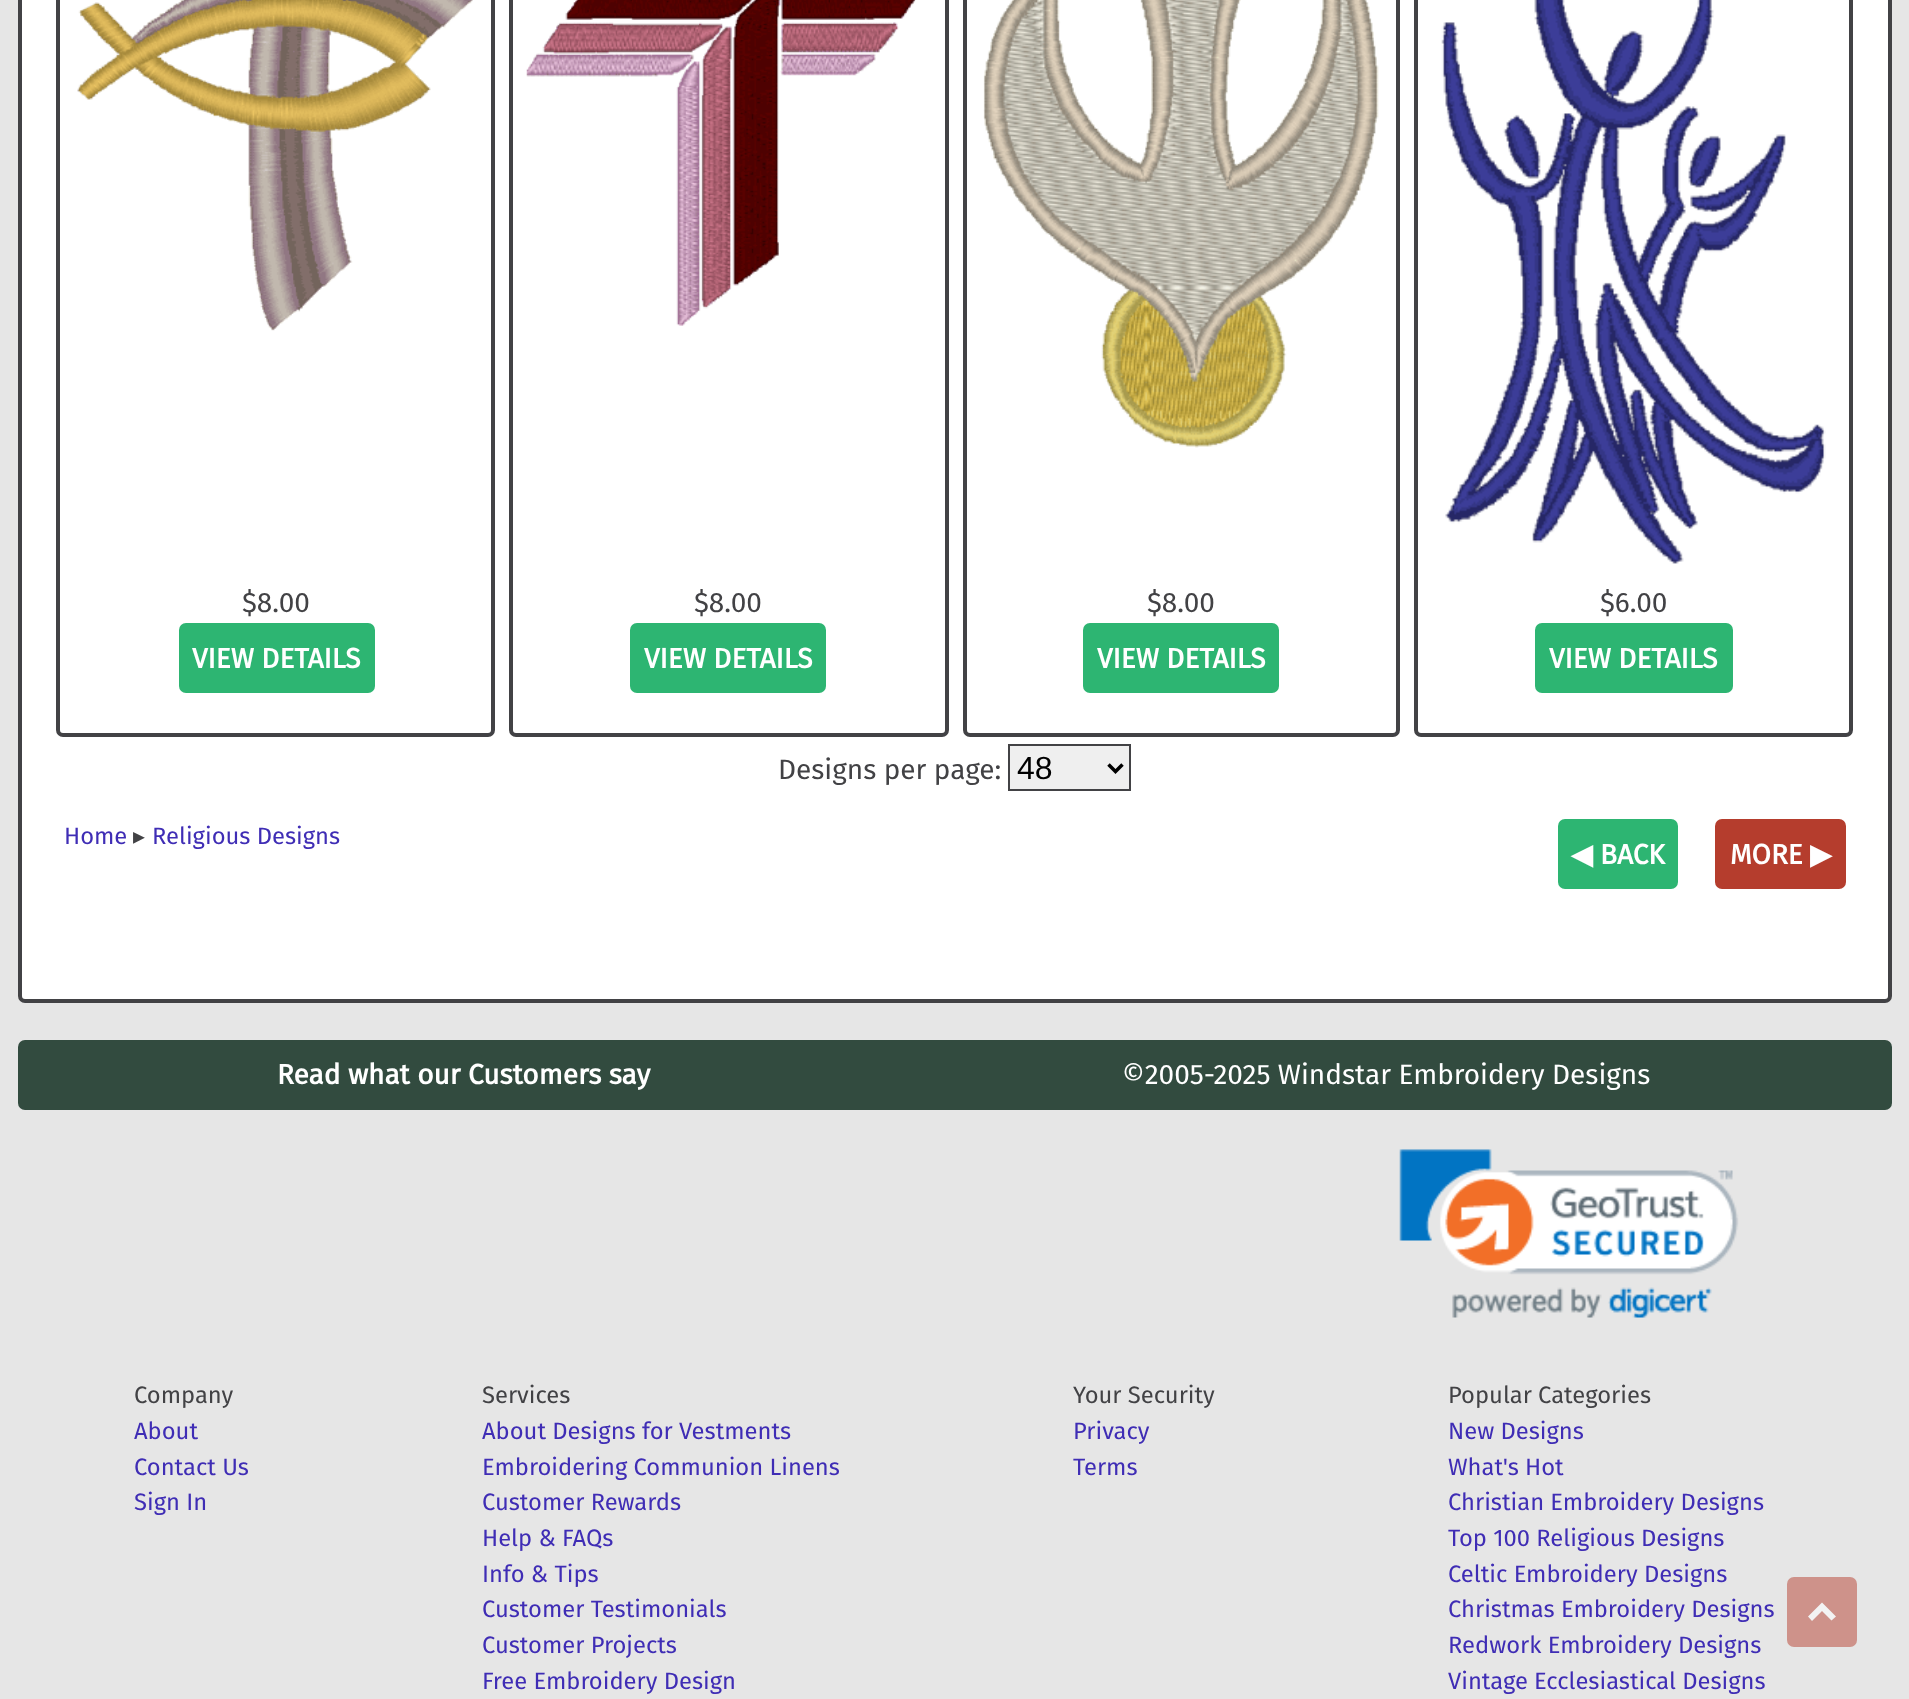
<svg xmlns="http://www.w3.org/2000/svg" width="1909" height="1699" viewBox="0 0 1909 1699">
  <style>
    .t1 { font: 28px Fira Sans; fill: #424245; }
    .t2 { font: bold 28px Fira Sans; fill: #fff; }
    .t3 { font: 32px Liberation Sans; fill: #000; }
    .t4 { font: 23.75px Fira Sans; fill: #3f2db5; }
    .t5 { font: 23.75px DejaVu Sans; fill: #424245; }
    .t6 { font: bold 28px DejaVu Sans; fill: #fff; }
    .t7 { font: 28px Fira Sans; fill: #fff; }
    .t8 { font: 23.75px Fira Sans; fill: #424245; }
  </style>
  <rect width="100%" height="100%" fill="#e6e6e6"/>
  <rect x="20" y="-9" width="1870" height="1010" rx="5" fill="#fff" stroke="#424245" stroke-width="4"/>
  <rect x="58" y="-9" width="435" height="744" rx="5" fill="none" stroke="#424245" stroke-width="4"/>
  <image x="77" y="0" width="396" height="331" href="images/1.png"/>
  <text x="242" y="612" class="t1">$8.00</text>
  <rect x="179" y="623" width="196" height="70" rx="7" fill="#2db572"/>
  <text x="192" y="668" class="t2">VIEW DETAILS</text>
  <rect x="511" y="-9" width="436" height="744" rx="5" fill="none" stroke="#424245" stroke-width="4"/>
  <image x="526" y="0" width="390" height="326" href="images/2.png"/>
  <text x="694" y="612" class="t1">$8.00</text>
  <rect x="630" y="623" width="196" height="70" rx="7" fill="#2db572"/>
  <text x="644" y="668" class="t2">VIEW DETAILS</text>
  <rect x="965" y="-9" width="433" height="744" rx="5" fill="none" stroke="#424245" stroke-width="4"/>
  <image x="983" y="0" width="396" height="448" href="images/3.png"/>
  <text x="1147" y="612" class="t1">$8.00</text>
  <rect x="1083" y="623" width="196" height="70" rx="7" fill="#2db572"/>
  <text x="1097" y="668" class="t2">VIEW DETAILS</text>
  <rect x="1416" y="-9" width="435" height="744" rx="5" fill="none" stroke="#424245" stroke-width="4"/>
  <image x="1441" y="0" width="385" height="564" href="images/4.png"/>
  <text x="1600" y="612" class="t1">$6.00</text>
  <rect x="1535" y="623" width="198" height="70" rx="7" fill="#2db572"/>
  <text x="1549" y="668" class="t2">VIEW DETAILS</text>
  <text x="778" y="779" class="t1">Designs per page:</text>
  <rect x="1009" y="745" width="121" height="45" fill="#efefef" stroke="#424245" stroke-width="2"/>
  <path d="M1108.5 764.5L1115.5 771.5L1122.5 764.5" fill="none" stroke="#000" stroke-width="3.5"/>
  <text x="1017" y="779" class="t3">48</text>
  <text x="64" y="844" class="t4">Home</text>
  <text x="133" y="844" class="t5">▸</text>
  <text x="152" y="844" class="t4">Religious Designs</text>
  <rect x="1558" y="819" width="120" height="70" rx="7" fill="#2db572"/>
  <text x="1571" y="864" class="t6">◀</text>
  <text x="1600" y="864" class="t2">BACK</text>
  <rect x="1715" y="819" width="131" height="70" rx="7" fill="#b53d2d"/>
  <text x="1730" y="864" class="t2">MORE</text>
  <text x="1810" y="864" class="t6">▶</text>
  <rect x="18" y="1040" width="1874" height="70" rx="7" fill="#324b3f"/>
  <text x="277" y="1084" class="t2">Read what our Customers say</text>
  <text x="1122" y="1084" class="t7">©2005-2025 Windstar Embroidery Designs</text>
  <image x="1399" y="1149" width="340" height="169" href="images/5.png"/>
  <text x="134" y="1403" class="t8">Company</text>
  <text x="134" y="1439" class="t4">About</text>
  <text x="134" y="1475" class="t4">Contact Us</text>
  <text x="134" y="1510" class="t4">Sign In</text>
  <text x="482" y="1403" class="t8">Services</text>
  <text x="482" y="1439" class="t4">About Designs for Vestments</text>
  <text x="482" y="1475" class="t4">Embroidering Communion Linens</text>
  <text x="482" y="1510" class="t4">Customer Rewards</text>
  <text x="482" y="1546" class="t4">Help &amp; FAQs</text>
  <text x="482" y="1582" class="t4">Info &amp; Tips</text>
  <text x="482" y="1617" class="t4">Customer Testimonials</text>
  <text x="482" y="1653" class="t4">Customer Projects</text>
  <text x="482" y="1689" class="t4">Free Embroidery Design</text>
  <text x="1073" y="1403" class="t8">Your Security</text>
  <text x="1073" y="1439" class="t4">Privacy</text>
  <text x="1073" y="1475" class="t4">Terms</text>
  <text x="1448" y="1403" class="t8">Popular Categories</text>
  <text x="1448" y="1439" class="t4">New Designs</text>
  <text x="1448" y="1475" class="t4">What's Hot</text>
  <text x="1448" y="1510" class="t4">Christian Embroidery Designs</text>
  <text x="1448" y="1546" class="t4">Top 100 Religious Designs</text>
  <text x="1448" y="1582" class="t4">Celtic Embroidery Designs</text>
  <text x="1448" y="1617" class="t4">Christmas Embroidery Designs</text>
  <text x="1448" y="1653" class="t4">Redwork Embroidery Designs</text>
  <text x="1448" y="1689" class="t4">Vintage Ecclesiastical Designs</text>
  <rect x="1787" y="1577" width="70" height="70" rx="7" fill="#ce928a"/>
  <path d="M1822 1602.5L1836 1616.5L1831.5 1620.5L1822 1611L1812 1621L1808 1616.5Z" fill="#f3f3f3"/>
</svg>
